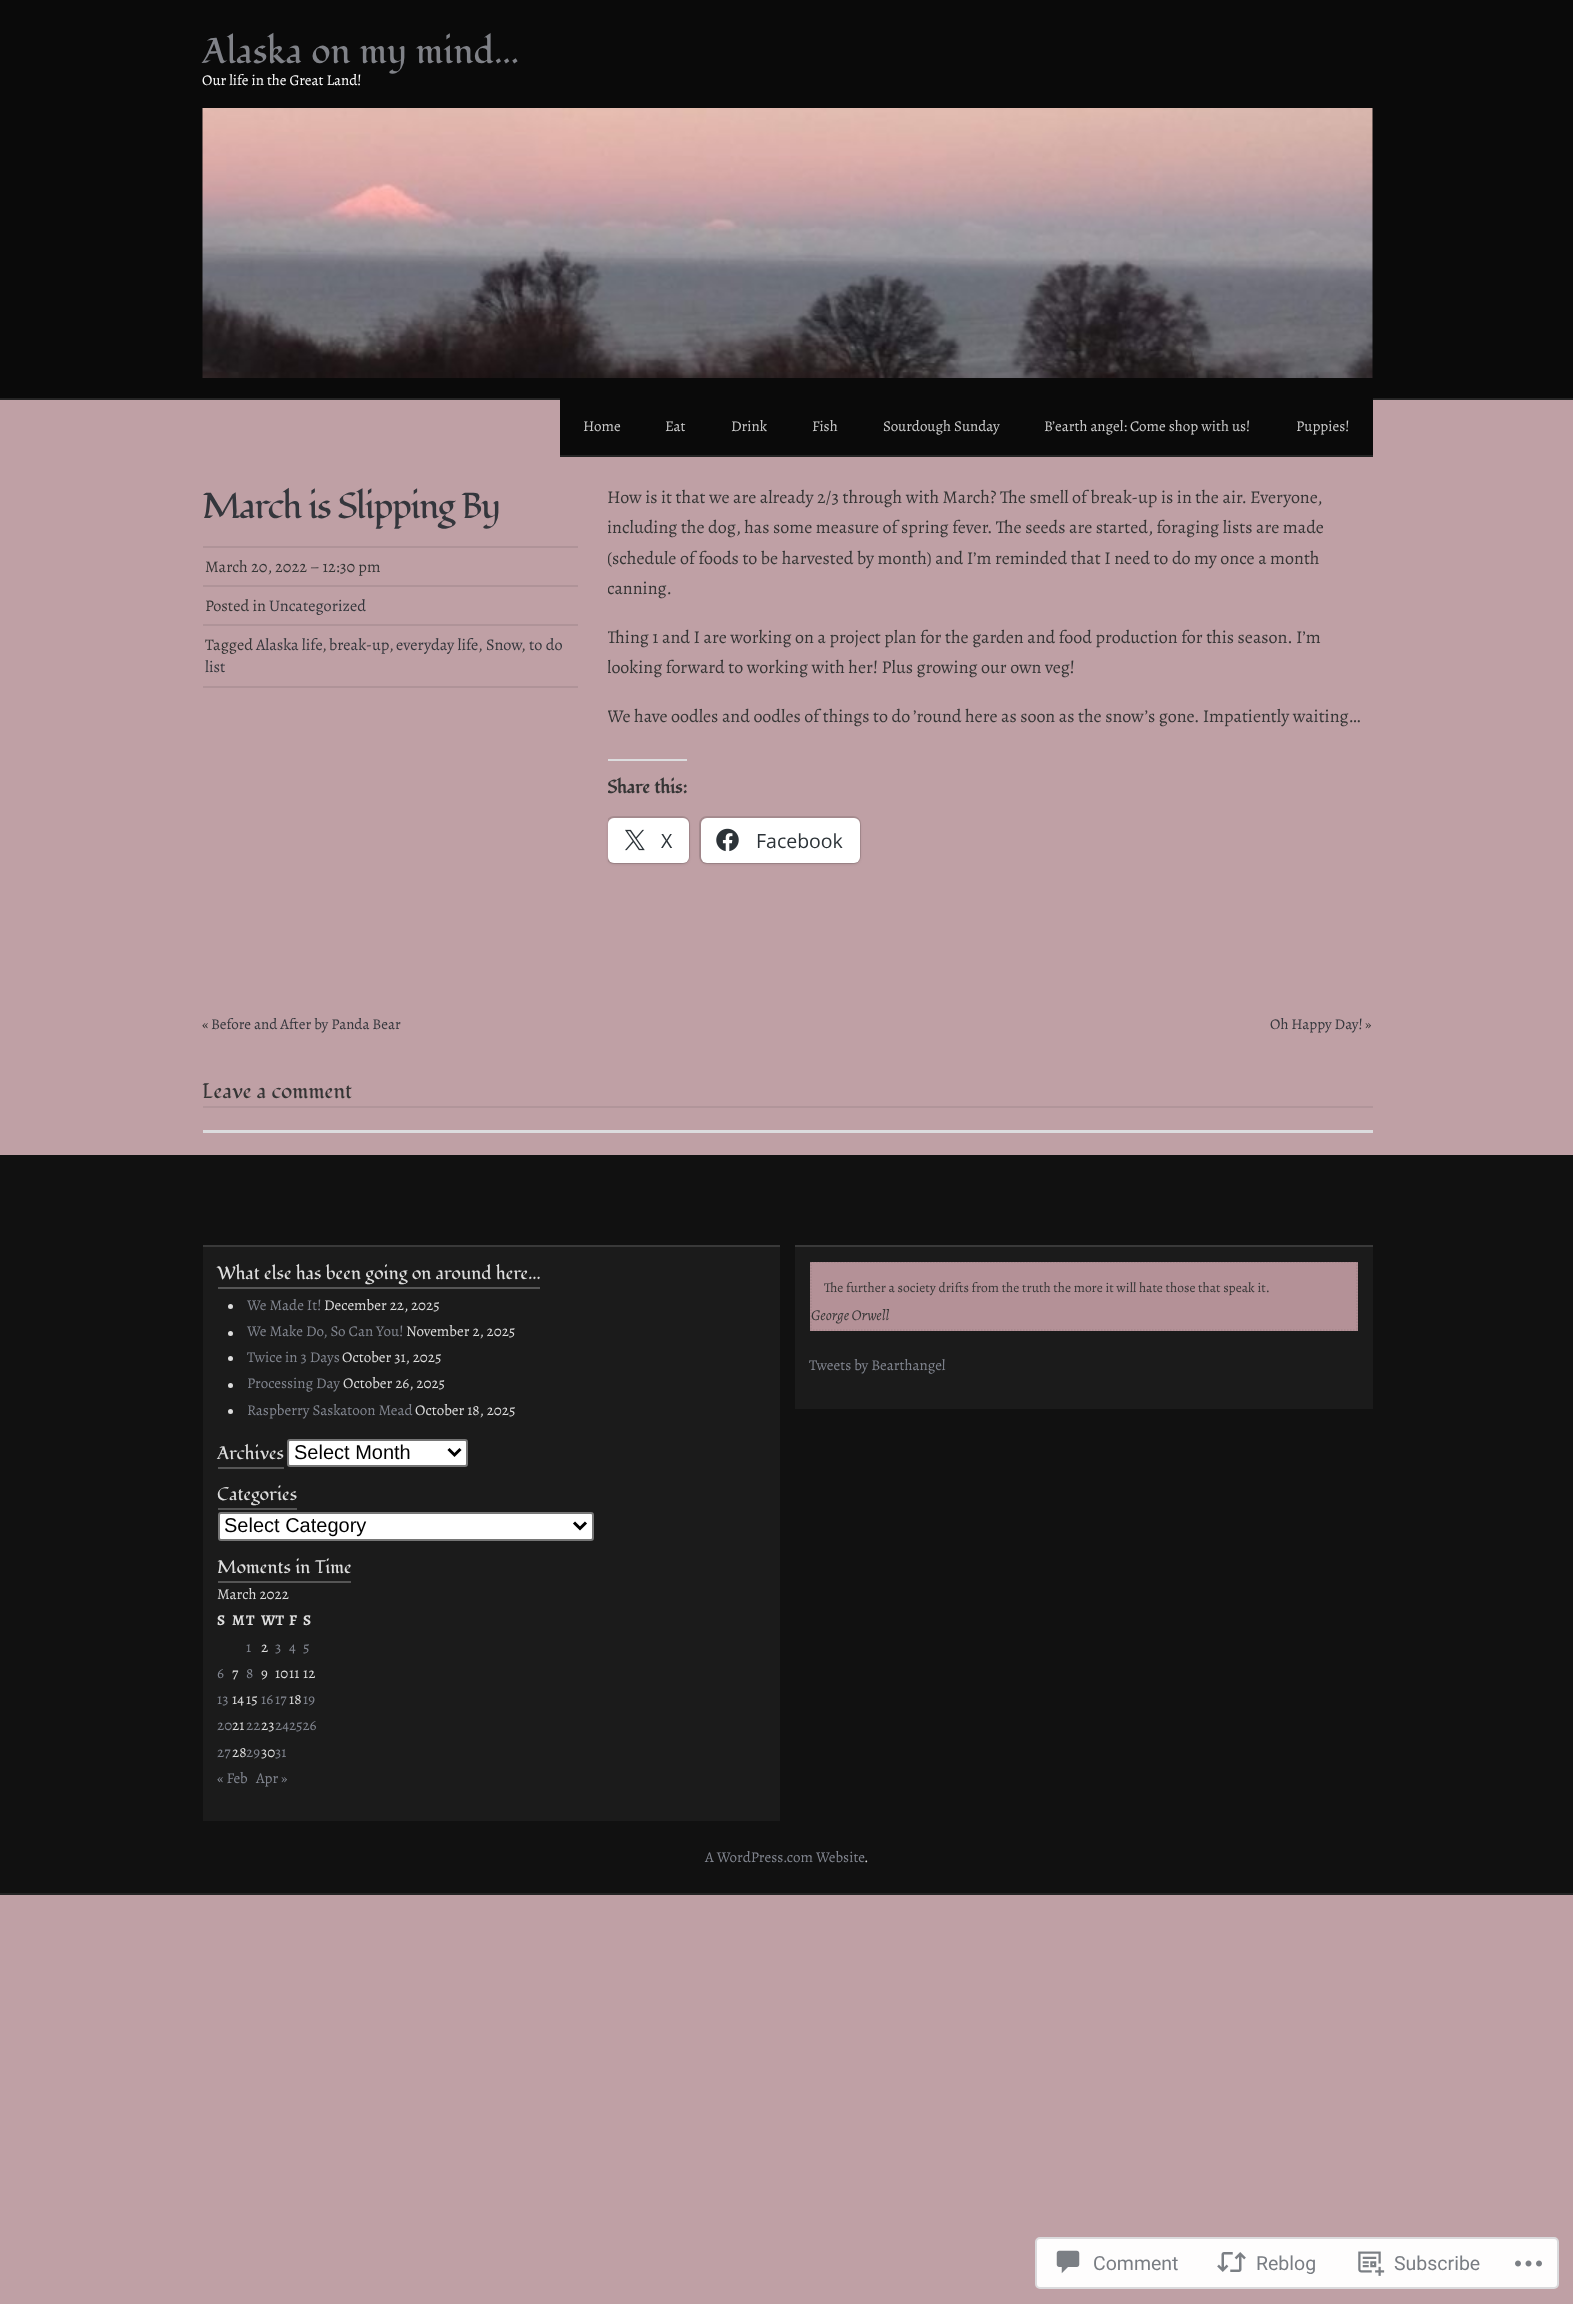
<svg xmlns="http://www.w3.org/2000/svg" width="1573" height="2304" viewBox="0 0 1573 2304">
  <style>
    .t1 { font: 36px Fondamento; fill: #808288; }
    .t2 { font: 15px Alegreya; fill: #fff; }
    .t3 { font: 15px Alegreya; fill: #ccc; }
    .t4 { font: 36px Fondamento; letter-spacing: -1.4px; fill: #34363c; }
    .t5 { font: 16.25px Alegreya; fill: #353535; }
    .t6 { font: 16.25px Alegreya; fill: #34363c; }
    .t7 { font: 18px Alegreya; fill: #353535; }
    .t8 { font: bold 18px Fondamento; fill: #353535; }
    .t9 { font: 19.5px Open Sans; fill: #2c3338; }
    .t10 { font: 15px Alegreya; fill: #353535; }
    .t11 { font: 15px Alegreya; fill: #34363c; }
    .t12 { font: 21px Fondamento; fill: #353535; }
    .t13 { font: 18px Fondamento; fill: #ddd; }
    .t14 { font: 15px Alegreya; fill: #828690; }
    .t15 { font: 15px Alegreya; fill: #ddd; }
    .t16 { font: 20px Liberation Sans; fill: #000; }
    .t17 { font: bold 15px Alegreya; fill: #ddd; }
    .t18 { font: 13.5px Alegreya; fill: #353535; }
    .t19 { font: italic 15px Alegreya; fill: #353535; }
    .t20 { font: 19.5px Roboto; fill: #797d83; }
  </style>
  <defs>
    <clipPath id="clip1"><rect x="608" y="482" width="765" height="492"/></clipPath>
    <clipPath id="clip2"><path d="M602 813H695V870H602ZM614 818H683C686.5 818 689 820.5 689 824V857C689 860.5 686.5 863 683 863H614C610.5 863 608 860.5 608 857V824C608 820.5 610.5 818 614 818Z" clip-rule="evenodd"/></clipPath>
  </defs>
  <rect width="100%" height="100%" fill="#bfa0a5"/>
  <rect x="0" y="0" width="1573" height="398" fill="#0a0a0a"/>
  <rect x="0" y="398" width="1573" height="2" fill="#242424"/>
  <text x="202" y="63" class="t1">Alaska on my mind…</text>
  <text x="202" y="85" class="t2">Our life in the Great Land!</text>
  <image x="202" y="108" width="1171" height="270" href="images/1.png"/>
  <rect x="560" y="398" width="813" height="57" fill="#0a0a0a"/>
  <rect x="560" y="455" width="813" height="2" fill="#242424"/>
  <text x="583" y="431" class="t3">Home</text>
  <text x="665" y="431" class="t3">Eat</text>
  <text x="731" y="431" class="t3">Drink</text>
  <text x="812" y="431" class="t3">Fish</text>
  <text x="883" y="431" class="t3">Sourdough Sunday</text>
  <text x="1044" y="431" class="t3">B’earth angel: Come shop with us!</text>
  <text x="1296" y="431" class="t3">Puppies!</text>
  <text x="202" y="518" class="t4">March is Slipping By</text>
  <rect x="203" y="546" width="375" height="2" fill="#af9398"/>
  <rect x="203" y="585" width="375" height="2" fill="#af9398"/>
  <text x="205" y="572" class="t5">March 20, 2022 – 12:30 pm</text>
  <rect x="203" y="624" width="375" height="2" fill="#af9398"/>
  <text x="205" y="611" class="t5">Posted in</text>
  <text x="269" y="611" class="t6">Uncategorized</text>
  <rect x="203" y="686" width="375" height="2" fill="#af9398"/>
  <text x="205" y="650" class="t5">Tagged</text>
  <text x="256" y="650" class="t6">Alaska life</text>
  <text x="322" y="650" class="t5">,</text>
  <text x="329" y="650" class="t6">break-up</text>
  <text x="389" y="650" class="t5">,</text>
  <text x="396" y="650" class="t6">everyday life</text>
  <text x="478" y="650" class="t5">,</text>
  <text x="486" y="650" class="t6">Snow</text>
  <text x="521" y="650" class="t5">,</text>
  <text x="529" y="650" class="t6">to do</text>
  <text x="205" y="672" class="t6">list</text>
  <text x="607" y="503" class="t7">How is it that we are already 2/3 through with March? The smell of break-up is in the air. Everyone,</text>
  <g clip-path="url(#clip1)">
    <text x="607" y="533" class="t7">including the dog, has some measure of spring fever. The seeds are started, foraging lists are made</text>
    <text x="607" y="564" class="t7">(schedule of foods to be harvested by month) and I’m reminded that I need to do my once a month</text>
    <text x="607" y="594" class="t7">canning.</text>
    <text x="607" y="643" class="t7">Thing 1 and I are working on a project plan for the garden and food production for this season. I’m</text>
    <text x="607" y="673" class="t7">looking forward to working with her! Plus growing our own veg!</text>
    <text x="607" y="722" class="t7">We have oodles and oodles of things to do ’round here as soon as the snow’s gone. Impatiently waiting…</text>
  </g>
  <rect x="608" y="759" width="79" height="2" fill="#dcdcde"/>
  <g clip-path="url(#clip1)">
    <text x="607" y="793" class="t8">Share this:</text>
    <rect x="607" y="817" width="82" height="46" rx="7" fill="none" stroke="#a88d91" stroke-width="2"/>
  </g>
  <g clip-path="url(#clip2)">
    <rect x="608" y="819" width="81" height="45" rx="6" fill="#0000001f" filter="blur(1.5px)"/>
  </g>
  <rect x="608" y="818" width="81" height="45" rx="6" fill="#fff"/>
  <image x="625" y="829" width="20" height="22" href="images/2.png"/>
  <text x="661" y="848" class="t9">X</text>
  <rect x="700" y="817" width="160" height="46" rx="7" fill="none" stroke="#a88d91" stroke-width="2"/>
  <rect x="701" y="819" width="159" height="45" rx="6" fill="#0000001f" filter="blur(1.5px)"/>
  <rect x="701" y="818" width="159" height="45" rx="6" fill="#fff"/>
  <image x="716" y="828" width="23" height="24" href="images/3.png"/>
  <text x="756" y="848" class="t9">Facebook</text>
  <text x="202" y="1029" class="t10">«</text>
  <text x="211" y="1029" class="t11">Before and After by Panda Bear</text>
  <text x="1270" y="1029" class="t11">Oh Happy Day!</text>
  <text x="1365" y="1029" class="t10">»</text>
  <rect x="203" y="1106" width="1170" height="2" fill="#b1959a"/>
  <text x="202" y="1098" class="t12">Leave a comment</text>
  <rect x="203" y="1130" width="1170" height="3" fill="#dcdcde"/>
  <rect x="0" y="1155" width="1573" height="738" fill="#111"/>
  <rect x="203" y="1247" width="577" height="574" fill="#1b1b1b"/>
  <rect x="203" y="1245" width="577" height="2" fill="#393939"/>
  <text x="217" y="1279" class="t13">What else has been going on around here…</text>
  <rect x="218" y="1287" width="322" height="2" fill="#555"/>
  <circle cx="230.5" cy="1306.5" r="2.5" fill="#ddd"/>
  <text x="247" y="1310" class="t14">We Made It!</text>
  <text x="324" y="1310" class="t15">December 22, 2025</text>
  <circle cx="230.5" cy="1333.5" r="2.5" fill="#ddd"/>
  <text x="247" y="1336" class="t14">We Make Do, So Can You!</text>
  <text x="406" y="1336" class="t15">November 2, 2025</text>
  <circle cx="230.5" cy="1358.5" r="2.5" fill="#ddd"/>
  <text x="247" y="1362" class="t14">Twice in 3 Days</text>
  <text x="342" y="1362" class="t15">October 31, 2025</text>
  <circle cx="230.5" cy="1385.5" r="2.5" fill="#ddd"/>
  <text x="247" y="1388" class="t14">Processing Day</text>
  <text x="343" y="1388" class="t15">October 26, 2025</text>
  <circle cx="230.5" cy="1411.5" r="2.5" fill="#ddd"/>
  <text x="247" y="1415" class="t14">Raspberry Saskatoon Mead</text>
  <text x="415" y="1415" class="t15">October 18, 2025</text>
  <text x="217" y="1459" class="t13">Archives</text>
  <rect x="218" y="1467" width="66" height="2" fill="#555"/>
  <rect x="288" y="1440" width="179" height="26" rx="2" fill="#fff" stroke="#767676" stroke-width="2"/>
  <path d="M448.5 1449L454.5 1455L460.5 1449" fill="none" stroke="#000" stroke-width="3"/>
  <text x="294" y="1459" class="t16">Select Month</text>
  <text x="217" y="1500" class="t13">Categories</text>
  <rect x="218" y="1508" width="79" height="2" fill="#555"/>
  <rect x="219" y="1513" width="374" height="27" rx="2" fill="#fff" stroke="#767676" stroke-width="2"/>
  <path d="M574 1522.5L580 1528.5L586 1522.5" fill="none" stroke="#000" stroke-width="3"/>
  <text x="224" y="1532" class="t16">Select Category</text>
  <text x="217" y="1573" class="t13">Moments in Time</text>
  <rect x="218" y="1581" width="133" height="2" fill="#555"/>
  <text x="217" y="1599" class="t15">March 2022</text>
  <text x="217" y="1625" class="t17">S</text>
  <text x="232" y="1625" class="t17">M</text>
  <text x="246" y="1625" class="t17">T</text>
  <text x="261" y="1625" class="t17">WT</text>
  <text x="289" y="1625" class="t17">F</text>
  <text x="303" y="1625" class="t17">S</text>
  <text x="246" y="1652" class="t14">1</text>
  <text x="261" y="1652" class="t15">2</text>
  <text x="275" y="1652" class="t14">3</text>
  <text x="289" y="1652" class="t14">4</text>
  <text x="303" y="1652" class="t14">5</text>
  <text x="217" y="1678" class="t14">6</text>
  <text x="232" y="1678" class="t15">7</text>
  <text x="246" y="1678" class="t14">8</text>
  <text x="261" y="1678" class="t15">9</text>
  <text x="275" y="1678" class="t15">10</text>
  <text x="289" y="1678" class="t15">11</text>
  <text x="303" y="1678" class="t15">12</text>
  <text x="217" y="1704" class="t14">13</text>
  <text x="232" y="1704" class="t15">14</text>
  <text x="246" y="1704" class="t15">15</text>
  <text x="261" y="1704" class="t14">16</text>
  <text x="275" y="1704" class="t14">17</text>
  <text x="289" y="1704" class="t15">18</text>
  <text x="303" y="1704" class="t14">19</text>
  <text x="217" y="1730" class="t14">20</text>
  <text x="232" y="1730" class="t15">21</text>
  <text x="246" y="1730" class="t14">22</text>
  <text x="261" y="1730" class="t15">23</text>
  <text x="275" y="1730" class="t14">242526</text>
  <text x="217" y="1757" class="t14">27</text>
  <text x="232" y="1757" class="t15">28</text>
  <text x="246" y="1757" class="t14">29</text>
  <text x="261" y="1757" class="t15">30</text>
  <text x="275" y="1757" class="t14">31</text>
  <text x="217" y="1783" class="t14">« Feb</text>
  <text x="256" y="1783" class="t14">Apr »</text>
  <rect x="795" y="1247" width="578" height="162" fill="#1b1b1b"/>
  <rect x="795" y="1245" width="578" height="2" fill="#393939"/>
  <rect x="810" y="1262" width="548" height="69" fill="#b49197"/>
  <path d="M810 1262H1357.5" fill="none" stroke="#3333331a" stroke-width="1.5" stroke-dasharray="1.5 1.5"/>
  <path d="M1357 1261.5V1330.5" fill="none" stroke="#3333331a" stroke-width="1.5" stroke-dasharray="1.5 1.5"/>
  <path d="M810 1330H1357.5" fill="none" stroke="#a7888d" stroke-width="1.5" stroke-dasharray="1.5 1.5"/>
  <path d="M811 1261.5V1330.5" fill="none" stroke="#3333331a" stroke-width="1.5" stroke-dasharray="1.5 1.5"/>
  <text x="824" y="1292" class="t18">The further a society drifts from the truth the more it will hate those that speak it.</text>
  <text x="811" y="1320" class="t19">George Orwell</text>
  <text x="809" y="1370" class="t14">Tweets by Bearthangel</text>
  <rect x="0" y="1893" width="1573" height="2" fill="#242424"/>
  <text x="705" y="1862" class="t14">A WordPress.com Website</text>
  <text x="864" y="1862" class="t15">.</text>
  <rect x="1036" y="2238" width="522" height="50" rx="4" fill="#fefdfd" stroke="#dbdbdd" stroke-width="2"/>
  <image x="1056" y="2250" width="24" height="24" href="images/4.png"/>
  <text x="1093" y="2270" class="t20">Comment</text>
  <image x="1217" y="2252" width="29" height="20" href="images/5.png"/>
  <text x="1256" y="2270" class="t20">Reblog</text>
  <image x="1358" y="2251" width="27" height="25" href="images/6.png"/>
  <text x="1394" y="2270" class="t20">Subscribe</text>
  <image x="1515" y="2260" width="27" height="7" href="images/7.png"/>
</svg>
